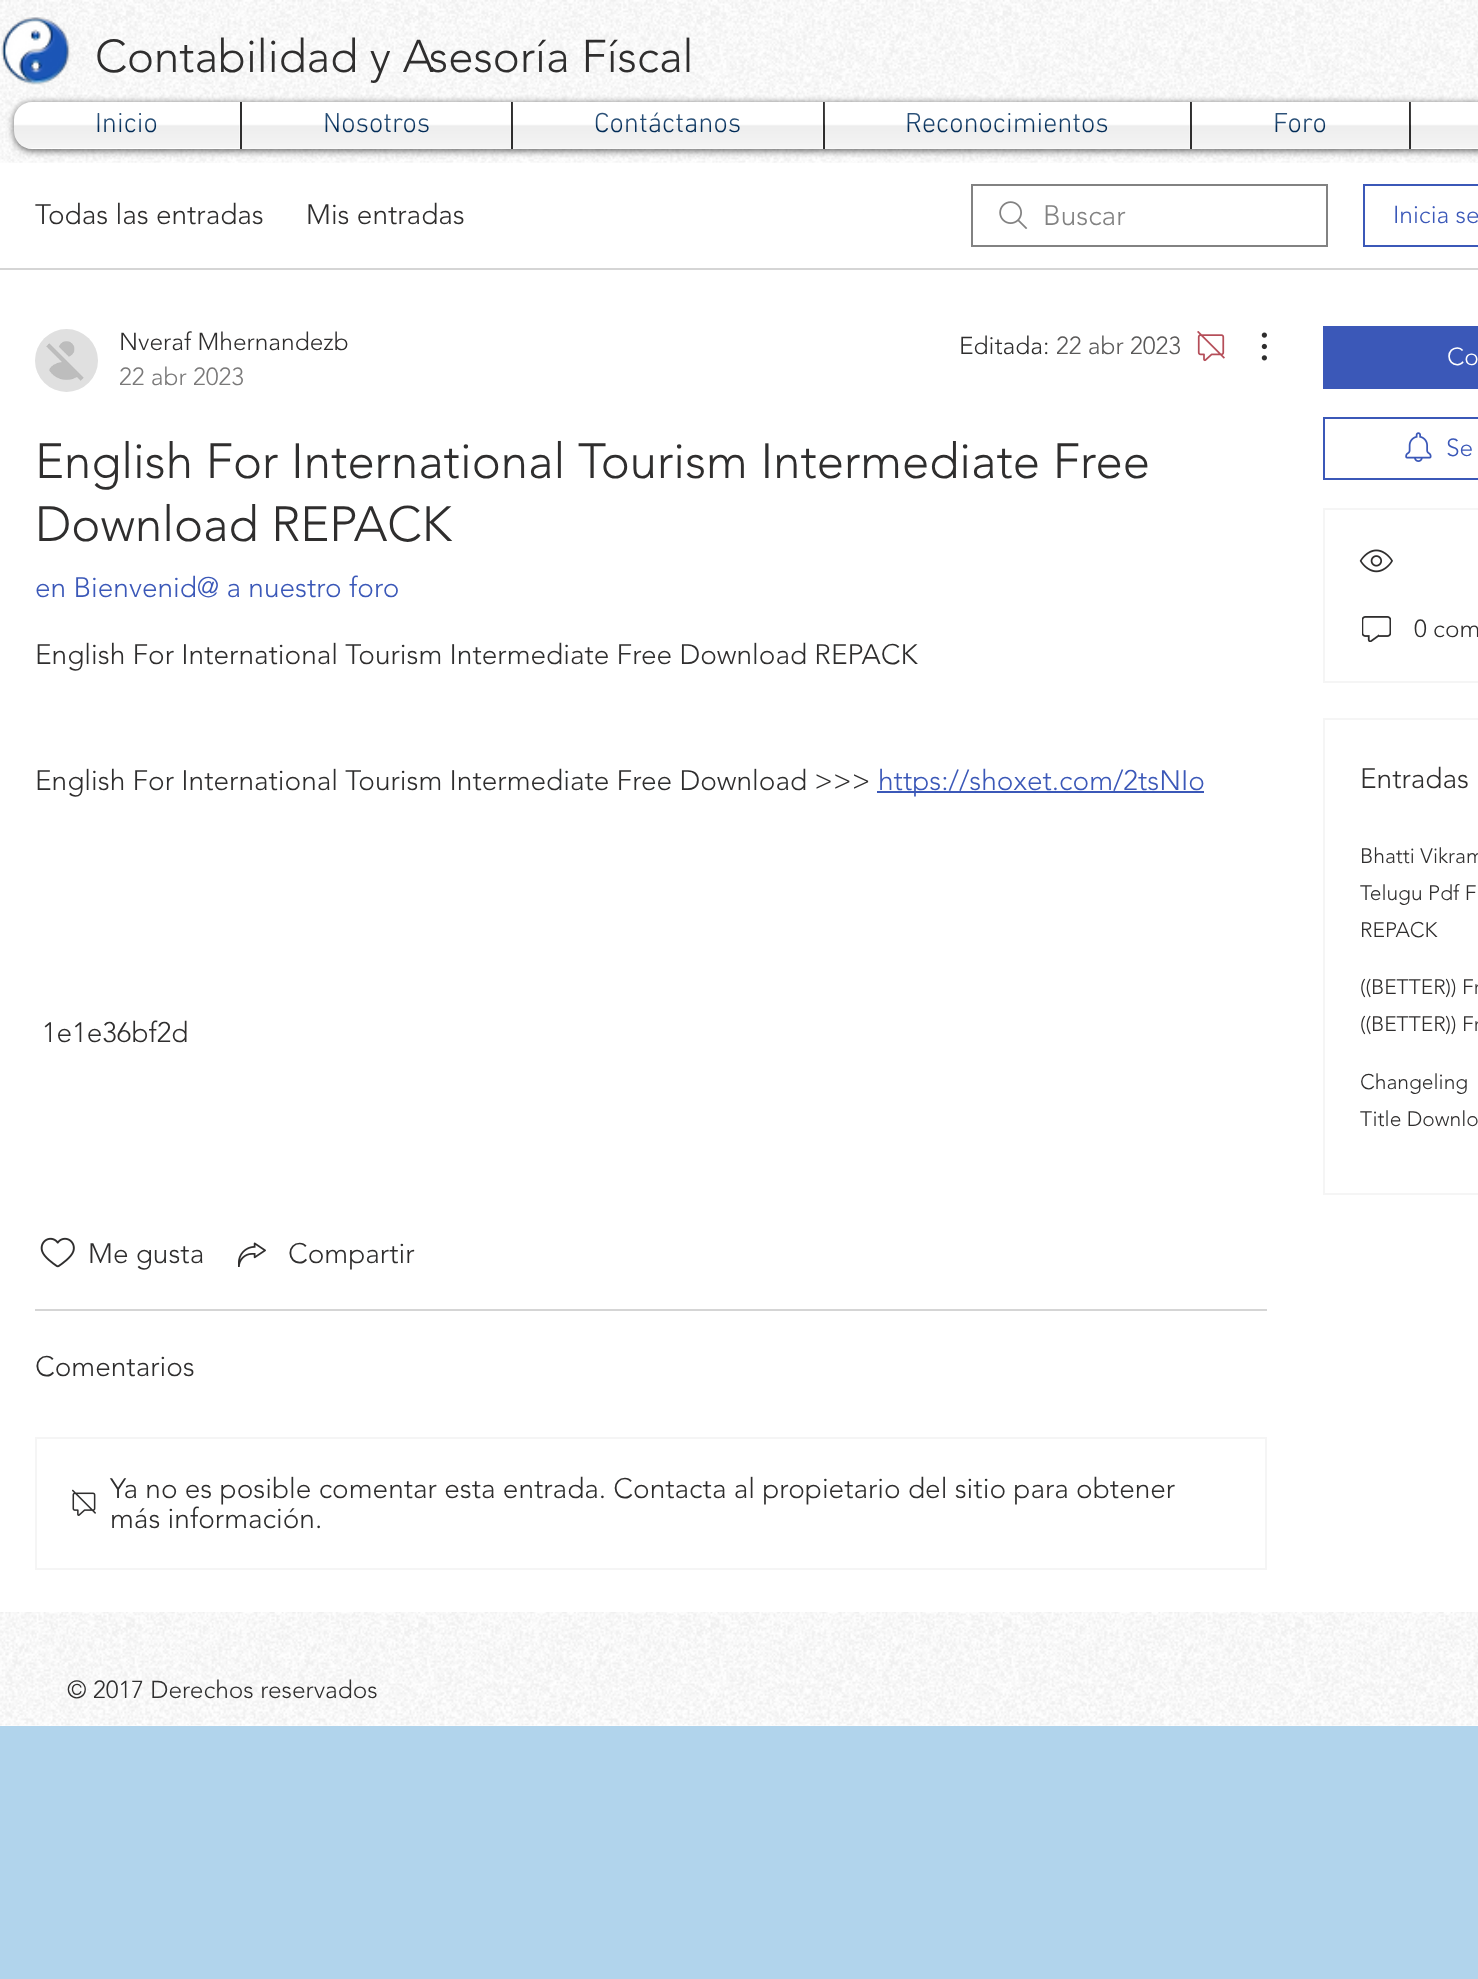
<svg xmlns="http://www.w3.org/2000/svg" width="1478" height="1979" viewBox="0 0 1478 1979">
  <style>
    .t1 { font: 300 45.5px 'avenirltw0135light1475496'; fill: #2f2e2e; }
    .t2 { font: 300 28px 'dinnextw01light'; fill: #002e5d; }
    .t3 { font: 300 28px 'avenirltw0135light1475496'; fill: #2f2e2e; }
    .t4 { font: 300 28px 'avenirltw0135light1475496'; fill: #828282; }
    .t5 { font: 300 24.5px 'avenirltw0135light1475496'; fill: #3b58b8; }
    .t6 { font: 300 24.5px 'avenirltw0135light1475496'; fill: #2f2e2e; }
    .t7 { font: 300 24.5px 'avenirltw0135light1475496'; fill: #7a7979; }
    .t8 { font: 300 24.5px 'avenirltw0135light1475496'; fill: #595858; }
    .t9 { font: 300 49px 'avenirltw0135light1475496'; fill: #2f2e2e; }
    .t10 { font: 300 28px 'avenirltw0135light1475496'; fill: #3b58b8; }
    .t11 { font: 300 24.5px 'avenirltw0135light1475496'; fill: #fff; }
    .t12 { font: 300 21px 'avenirltw0135light1475496'; fill: #2f2e2e; }
  </style>
  <rect width="100%" height="100%" fill="#b1d4ec"/>
  <rect x="0" y="0" width="1478" height="1726" fill="#fff"/>
  <image x="0" y="0" width="1478" height="163" href="images/1.png"/>
  <image x="1" y="17" width="70" height="68" href="images/2.png"/>
  <text x="95" y="72" class="t1">Contabilidad y Asesoría Físcal</text>
  <rect x="14" y="103" width="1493" height="48" rx="18" fill="#00000099" filter="blur(3.5px)"/>
  <image x="14" y="131" width="12" height="17" href="images/3.png"/>
  <path d="M32 102H240V149H32C22 149 14 141 14 131V120C14 110 22 102 32 102Z" fill="#fff"/>
  <text x="95" y="132" class="t2">Inicio</text>
  <image x="14" y="113" width="226" height="35" href="images/4.png"/>
  <rect x="242" y="102" width="269" height="47" fill="#fff"/>
  <rect x="240" y="102" width="2" height="47" fill="#2f2e2e"/>
  <text x="323" y="132" class="t2">Nosotros</text>
  <image x="242" y="113" width="269" height="36" href="images/5.png"/>
  <rect x="513" y="102" width="310" height="47" fill="#fff"/>
  <rect x="511" y="102" width="2" height="47" fill="#2f2e2e"/>
  <text x="594" y="132" class="t2">Contáctanos</text>
  <image x="512" y="102" width="311" height="47" href="images/6.png"/>
  <rect x="825" y="102" width="365" height="47" fill="#fff"/>
  <rect x="823" y="102" width="2" height="47" fill="#2f2e2e"/>
  <text x="905" y="132" class="t2">Reconocimientos</text>
  <image x="823" y="102" width="367" height="47" href="images/7.png"/>
  <rect x="1192" y="102" width="217" height="47" fill="#fff"/>
  <rect x="1190" y="102" width="2" height="47" fill="#2f2e2e"/>
  <text x="1273" y="132" class="t2">Foro</text>
  <image x="1191" y="102" width="218" height="47" href="images/8.png"/>
  <rect x="1411" y="102" width="67" height="47" fill="#fff"/>
  <rect x="1409" y="102" width="2" height="47" fill="#2f2e2e"/>
  <image x="1410" y="102" width="68" height="46" href="images/9.png"/>
  <rect x="0" y="268" width="1478" height="2" fill="#d5d5d5"/>
  <text x="35" y="224" class="t3">Todas las entradas</text>
  <text x="306" y="224" class="t3">Mis entradas</text>
  <image x="999" y="201" width="29" height="28" href="images/10.png"/>
  <rect x="972" y="185" width="355" height="61" fill="none" stroke="#828282" stroke-width="2"/>
  <text x="1043" y="225" class="t4">Buscar</text>
  <rect x="1364" y="185" width="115" height="61" fill="none" stroke="#3b58b8" stroke-width="2"/>
  <text x="1393" y="223" class="t5">Inicia se</text>
  <image x="35" y="329" width="63" height="63" href="images/11.png"/>
  <text x="119" y="350" class="t6">Nveraf Mhernandezb</text>
  <text x="119" y="385" class="t7">22 abr 2023</text>
  <text x="959" y="354" class="t6">Editada:</text>
  <text x="1056" y="354" class="t8">22 abr 2023</text>
  <image x="1197" y="331" width="28" height="31" href="images/12.png"/>
  <image x="1261" y="332" width="6" height="29" href="images/13.png"/>
  <text x="35" y="478" class="t9">English For International Tourism Intermediate Free</text>
  <text x="35" y="541" class="t9">Download REPACK</text>
  <text x="35" y="597" class="t10">en Bienvenid@ a nuestro foro</text>
  <text x="35" y="664" class="t3">English For International Tourism Intermediate Free Download REPACK</text>
  <text x="35" y="790" class="t3">English For International Tourism Intermediate Free Download &gt;&gt;&gt;</text>
  <rect x="877" y="791" width="327" height="2" fill="#3b58b8"/>
  <text x="878" y="790" class="t10">https://shoxet.com/2tsNIo</text>
  <text x="42" y="1042" class="t3">1e1e36bf2d</text>
  <image x="40" y="1237" width="35" height="31" href="images/14.png"/>
  <text x="88" y="1263" class="t3">Me gusta</text>
  <image x="238" y="1242" width="28" height="25" href="images/15.png"/>
  <text x="288" y="1263" class="t3">Compartir</text>
  <rect x="35" y="1309" width="1232" height="2" fill="#d5d5d5"/>
  <text x="35" y="1376" class="t3">Comentarios</text>
  <rect x="36" y="1438" width="1230" height="131" fill="none" stroke="#f5f5f5" stroke-width="2"/>
  <image x="72" y="1489" width="24" height="27" href="images/16.png"/>
  <text x="110" y="1498" class="t3">Ya no es posible comentar esta entrada. Contacta al propietario del sitio para obtener</text>
  <text x="110" y="1528" class="t3">más información.</text>
  <rect x="1323" y="326" width="155" height="63" fill="#3b58b8"/>
  <text x="1447" y="365" class="t11">Co</text>
  <rect x="1324" y="418" width="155" height="61" fill="none" stroke="#3b58b8" stroke-width="2"/>
  <image x="1405" y="432" width="27" height="30" href="images/17.png"/>
  <text x="1446" y="456" class="t5">Se</text>
  <rect x="1324" y="509" width="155" height="173" fill="none" stroke="#f5f5f5" stroke-width="2"/>
  <image x="1359" y="549" width="34" height="24" href="images/18.png"/>
  <image x="1362" y="616" width="29" height="26" href="images/19.png"/>
  <text x="1414" y="637" class="t6">0 com</text>
  <rect x="1324" y="719" width="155" height="475" fill="none" stroke="#f5f5f5" stroke-width="2"/>
  <text x="1360" y="788" class="t3">Entradas</text>
  <text x="1360" y="863" class="t12">Bhatti Vikram</text>
  <text x="1360" y="900" class="t12">Telugu Pdf F</text>
  <text x="1360" y="937" class="t12">REPACK</text>
  <text x="1360" y="994" class="t12">((BETTER)) Fr</text>
  <text x="1360" y="1031" class="t12">((BETTER)) Fr</text>
  <text x="1360" y="1089" class="t12">Changeling</text>
  <text x="1360" y="1126" class="t12">Title Downlo</text>
  <image x="0" y="1612" width="1478" height="114" href="images/20.png"/>
  <text x="67" y="1698" class="t6">© 2017 Derechos reservados</text>
</svg>
